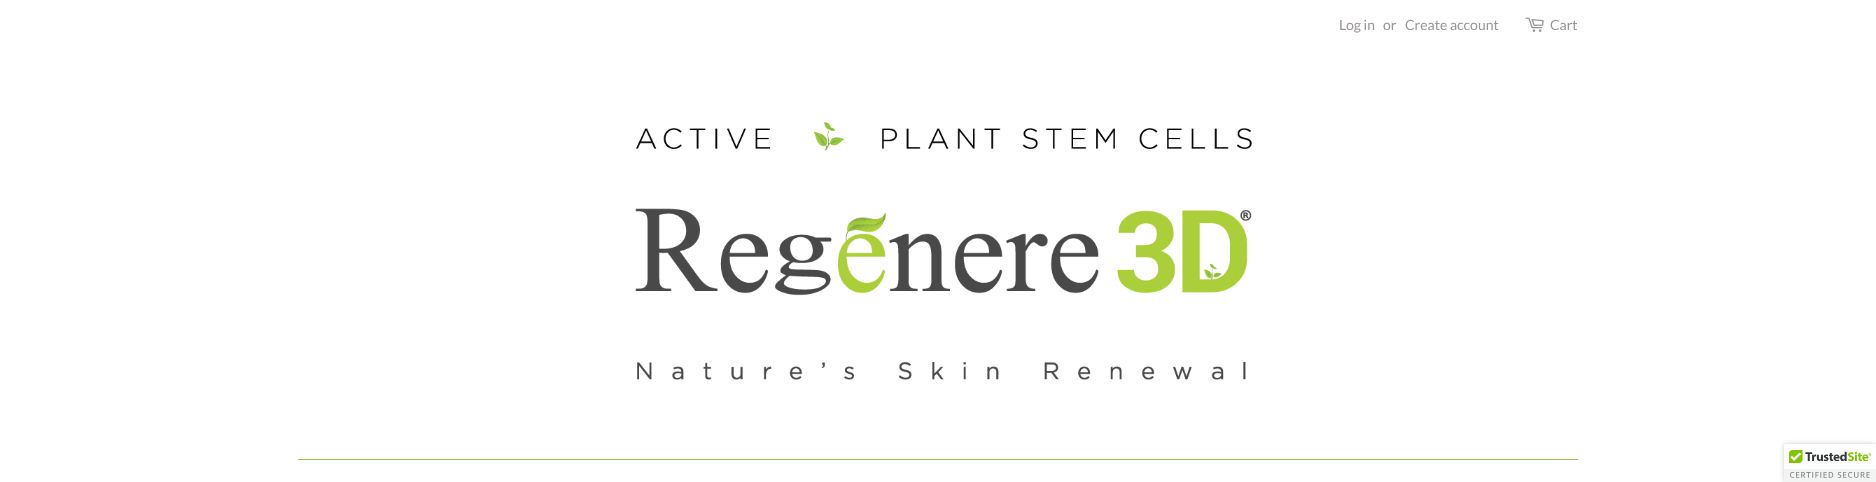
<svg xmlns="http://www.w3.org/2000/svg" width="1876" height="482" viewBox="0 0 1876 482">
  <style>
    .t1 { font: 14px Lato; fill: #9a9595; }
  </style>
  <rect width="100%" height="100%" fill="#fff"/>
  <text x="1339" y="30" class="t1">Log in</text>
  <text x="1383" y="30" class="t1">or</text>
  <text x="1405" y="30" class="t1">Create account</text>
  <image x="1525" y="17" width="19" height="15" href="images/1.png"/>
  <text x="1550" y="30" class="t1">Cart</text>
  <image x="635" y="121" width="617" height="259" href="images/2.png"/>
  <rect x="298" y="459" width="1280" height="1" fill="#9ac550"/>
  <rect x="1784" y="444" width="92" height="38" rx="2" fill="#00000033" filter="blur(2.5px)"/>
  <path d="M1786 444H1876V482H1784V446C1784 445 1785 444 1786 444Z" fill="#fff"/>
  <image x="1784" y="444" width="92" height="38" href="images/3.png"/>
</svg>
